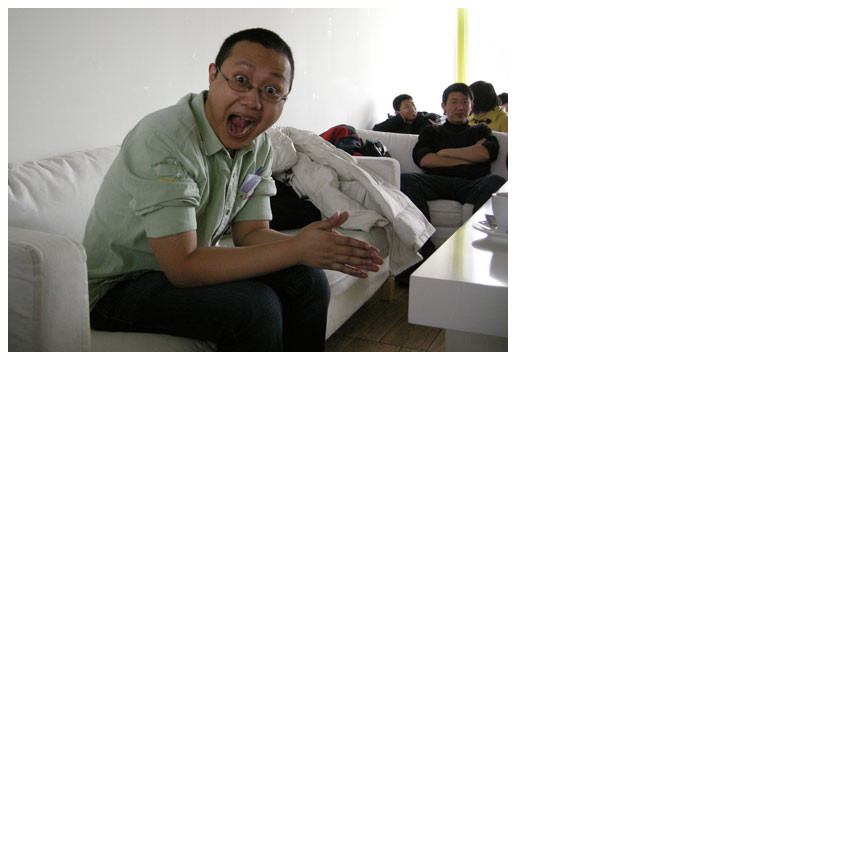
<svg xmlns="http://www.w3.org/2000/svg" width="867" height="855" viewBox="0 0 867 855">
  <rect width="100%" height="100%" fill="#fff"/>
  <image x="8" y="8" width="500" height="344" href="images/1.png"/>
</svg>
